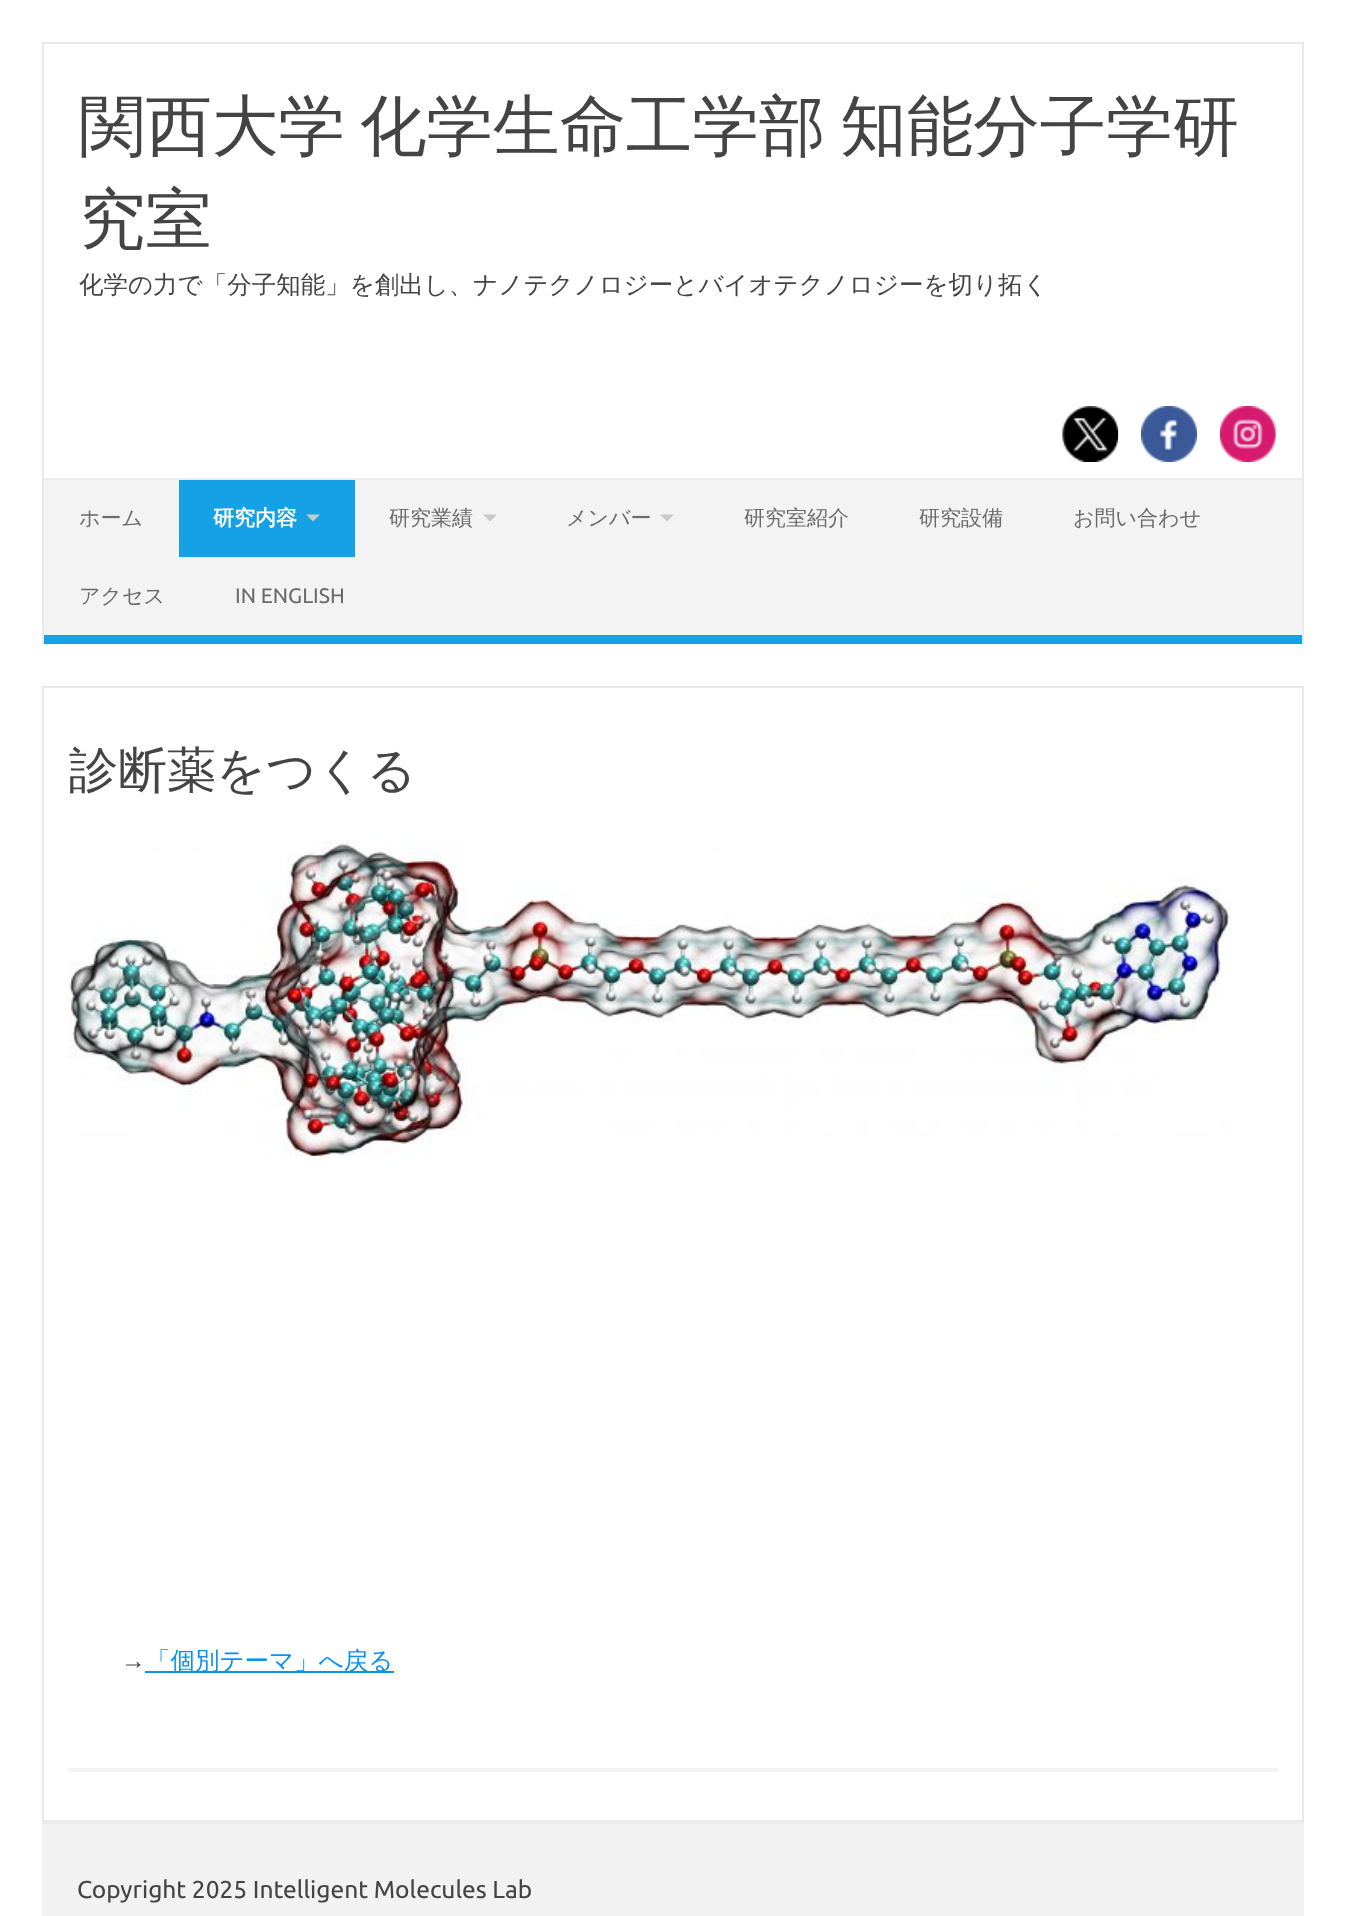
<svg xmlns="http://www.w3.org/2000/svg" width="1345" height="1916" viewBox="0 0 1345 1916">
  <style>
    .t1 { font: 500 66.5px WenQuanYi Zen Hei; fill: #444; }
    .t2 { font: 500 24.5px WenQuanYi Zen Hei; fill: #444; }
    .t3 { font: 500 21px WenQuanYi Zen Hei; fill: #6a6a6a; }
    .t4 { font: bold 21px WenQuanYi Zen Hei; fill: #fff; }
    .t5 { font: 21px Ubuntu; fill: #6a6a6a; }
    .t6 { font: 500 49px WenQuanYi Zen Hei; fill: #444; }
    .t7 { font: 24.5px Liberation Sans; fill: #444; }
    .t8 { font: 500 24.5px WenQuanYi Zen Hei; fill: #0b91ea; }
    .t9 { font: 24.5px Ubuntu; fill: #444; }
  </style>
  <rect width="100%" height="100%" fill="#fff"/>
  <rect x="42" y="42" width="1262" height="2" fill="#e9e9e9"/>
  <rect x="1302" y="42" width="2" height="602" fill="#e9e9e9"/>
  <rect x="42" y="42" width="2" height="602" fill="#e9e9e9"/>
  <text x="79" y="149" word-spacing="-5" class="t1">関西大学 化学生命工学部 知能分子学研</text>
  <text x="79" y="242" class="t1">究室</text>
  <text x="79" y="293" class="t2">化学の力で「分子知能」を創出し、ナノテクノロジーとバイオテクノロジーを切り拓く</text>
  <image x="1062" y="406" width="57" height="56" href="images/1.png"/>
  <image x="1141" y="406" width="56" height="56" href="images/2.png"/>
  <image x="1219" y="406" width="57" height="56" href="images/3.png"/>
  <rect x="44" y="480" width="1258" height="155" fill="#f3f3f3"/>
  <rect x="44" y="478" width="1258" height="2" fill="#ededed"/>
  <rect x="44" y="635" width="1258" height="9" fill="#16a1e7"/>
  <text x="79" y="525" class="t3">ホーム</text>
  <rect x="179" y="480" width="176" height="77" fill="#16a1e7"/>
  <text x="213" y="525" class="t4">研究内容</text>
  <path d="M306 514.5H320L313 521.5Z" fill="#c9c9c9"/>
  <text x="389" y="525" class="t3">研究業績</text>
  <path d="M483 514.5H497L490 521.5Z" fill="#c9c9c9"/>
  <text x="566" y="525" class="t3">メンバー</text>
  <path d="M660 514.5H674L667 521.5Z" fill="#c9c9c9"/>
  <text x="744" y="525" class="t3">研究室紹介</text>
  <text x="919" y="525" class="t3">研究設備</text>
  <text x="1073" y="525" class="t3">お問い合わせ</text>
  <text x="79" y="603" class="t3">アクセス</text>
  <text x="235" y="603" class="t5">IN ENGLISH</text>
  <rect x="43" y="687" width="1260" height="1134" fill="none" stroke="#e9e9e9" stroke-width="2"/>
  <rect x="68" y="1768" width="1210" height="4" fill="#f3f3f3"/>
  <text x="69" y="787" class="t6">診断薬をつくる</text>
  <image x="68" y="840" width="1164" height="318" href="images/4.png"/>
  <text x="121" y="1669" class="t7">→</text>
  <rect x="145" y="1671" width="249" height="2" fill="#0b91ea"/>
  <text x="146" y="1669" class="t8">「個別テーマ」へ戻る</text>
  <rect x="42" y="1824" width="1262" height="92" fill="#f2f2f2"/>
  <rect x="42" y="1822" width="1262" height="2" fill="#ededed"/>
  <text x="77" y="1898" class="t9">Copyright 2025 Intelligent Molecules Lab</text>
</svg>
